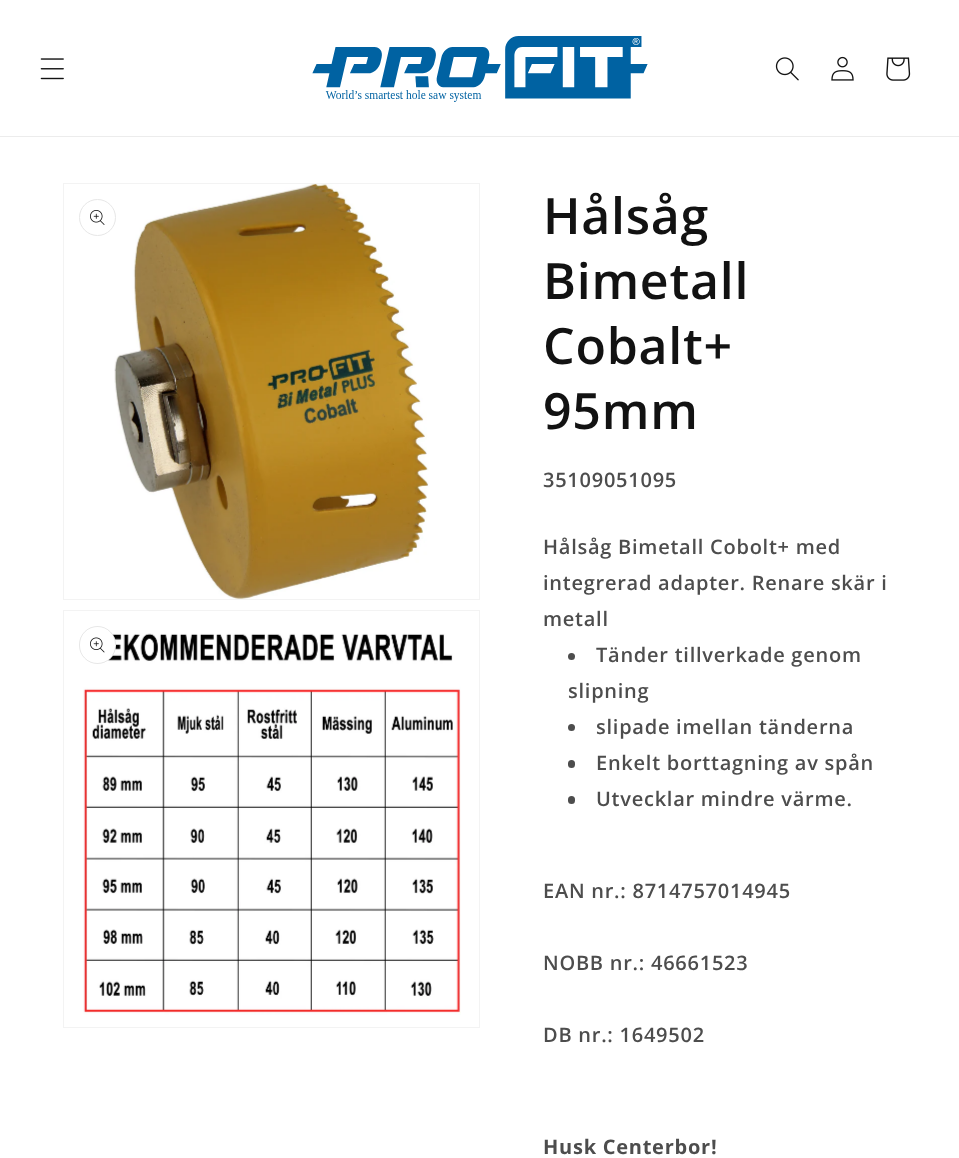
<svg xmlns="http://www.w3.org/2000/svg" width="959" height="1158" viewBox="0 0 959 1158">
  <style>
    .t1 { font: 600 50px Open Sans; letter-spacing: 0.75px; fill: #121212; }
    .t2 { font: 600 20px Open Sans; letter-spacing: 0.75px; fill: #4d4d4d; }
    .t3 { font: bold 20px Open Sans; letter-spacing: 0.75px; fill: #4d4d4d; }
  </style>
  <rect width="100%" height="100%" fill="#fff"/>
  <rect x="0" y="136" width="959" height="1" fill="#ececec"/>
  <image x="40" y="58" width="24" height="22" href="images/1.png"/>
  <image x="312" y="36" width="336" height="66" href="images/2.png"/>
  <image x="775" y="57" width="24" height="24" href="images/3.png"/>
  <image x="831" y="56" width="23" height="25" href="images/4.png"/>
  <image x="886" y="57" width="25" height="24" href="images/5.png"/>
  <rect x="63.5" y="183.5" width="416" height="416" fill="none" stroke="#f3f3f3"/>
  <image x="114" y="184" width="315" height="415" href="images/7.png"/>
  <circle cx="97.5" cy="217.5" r="18" fill="none" stroke="#e7e7e7"/>
  <image x="90" y="210" width="15" height="15" href="images/6.png"/>
  <rect x="63.5" y="610.5" width="416" height="417" fill="none" stroke="#f3f3f3"/>
  <image x="83" y="633" width="378" height="382" href="images/9.png"/>
  <rect x="79" y="626" width="37" height="38" rx="18.5" fill="#fff"/>
  <rect x="79.5" y="626.5" width="36" height="37" rx="18" fill="none" stroke="#1212121a"/>
  <image x="90" y="637" width="15" height="16" href="images/8.png"/>
  <text x="543" y="234" class="t1">Hålsåg</text>
  <text x="543" y="299" class="t1">Bimetall</text>
  <text x="543" y="364" class="t1">Cobalt+</text>
  <text x="543" y="429" class="t1">95mm</text>
  <text x="543" y="487" class="t2">35109051095</text>
  <text x="543" y="554" class="t2">Hålsåg Bimetall Cobolt+ med</text>
  <text x="543" y="590" class="t2">integrerad adapter. Renare skär i</text>
  <text x="543" y="626" class="t2">metall</text>
  <circle cx="571.5" cy="656.5" r="3.5" fill="#4d4d4d"/>
  <text x="596" y="662" class="t2">Tänder tillverkade genom</text>
  <text x="568" y="698" class="t2">slipning</text>
  <circle cx="571.5" cy="727.5" r="3.5" fill="#4d4d4d"/>
  <text x="596" y="734" class="t2">slipade imellan tänderna</text>
  <rect x="568" y="760" width="7" height="8" rx="3.5" fill="#4d4d4d"/>
  <text x="596" y="770" class="t2">Enkelt borttagning av spån</text>
  <rect x="568" y="796" width="7" height="8" rx="3.5" fill="#4d4d4d"/>
  <text x="596" y="806" class="t2">Utvecklar mindre värme.</text>
  <text x="543" y="898" class="t2">EAN nr.: 8714757014945</text>
  <text x="543" y="970" class="t2">NOBB nr.: 46661523</text>
  <text x="543" y="1042" class="t2">DB nr.: 1649502</text>
  <text x="543" y="1154" class="t3">Husk Centerbor!</text>
</svg>
